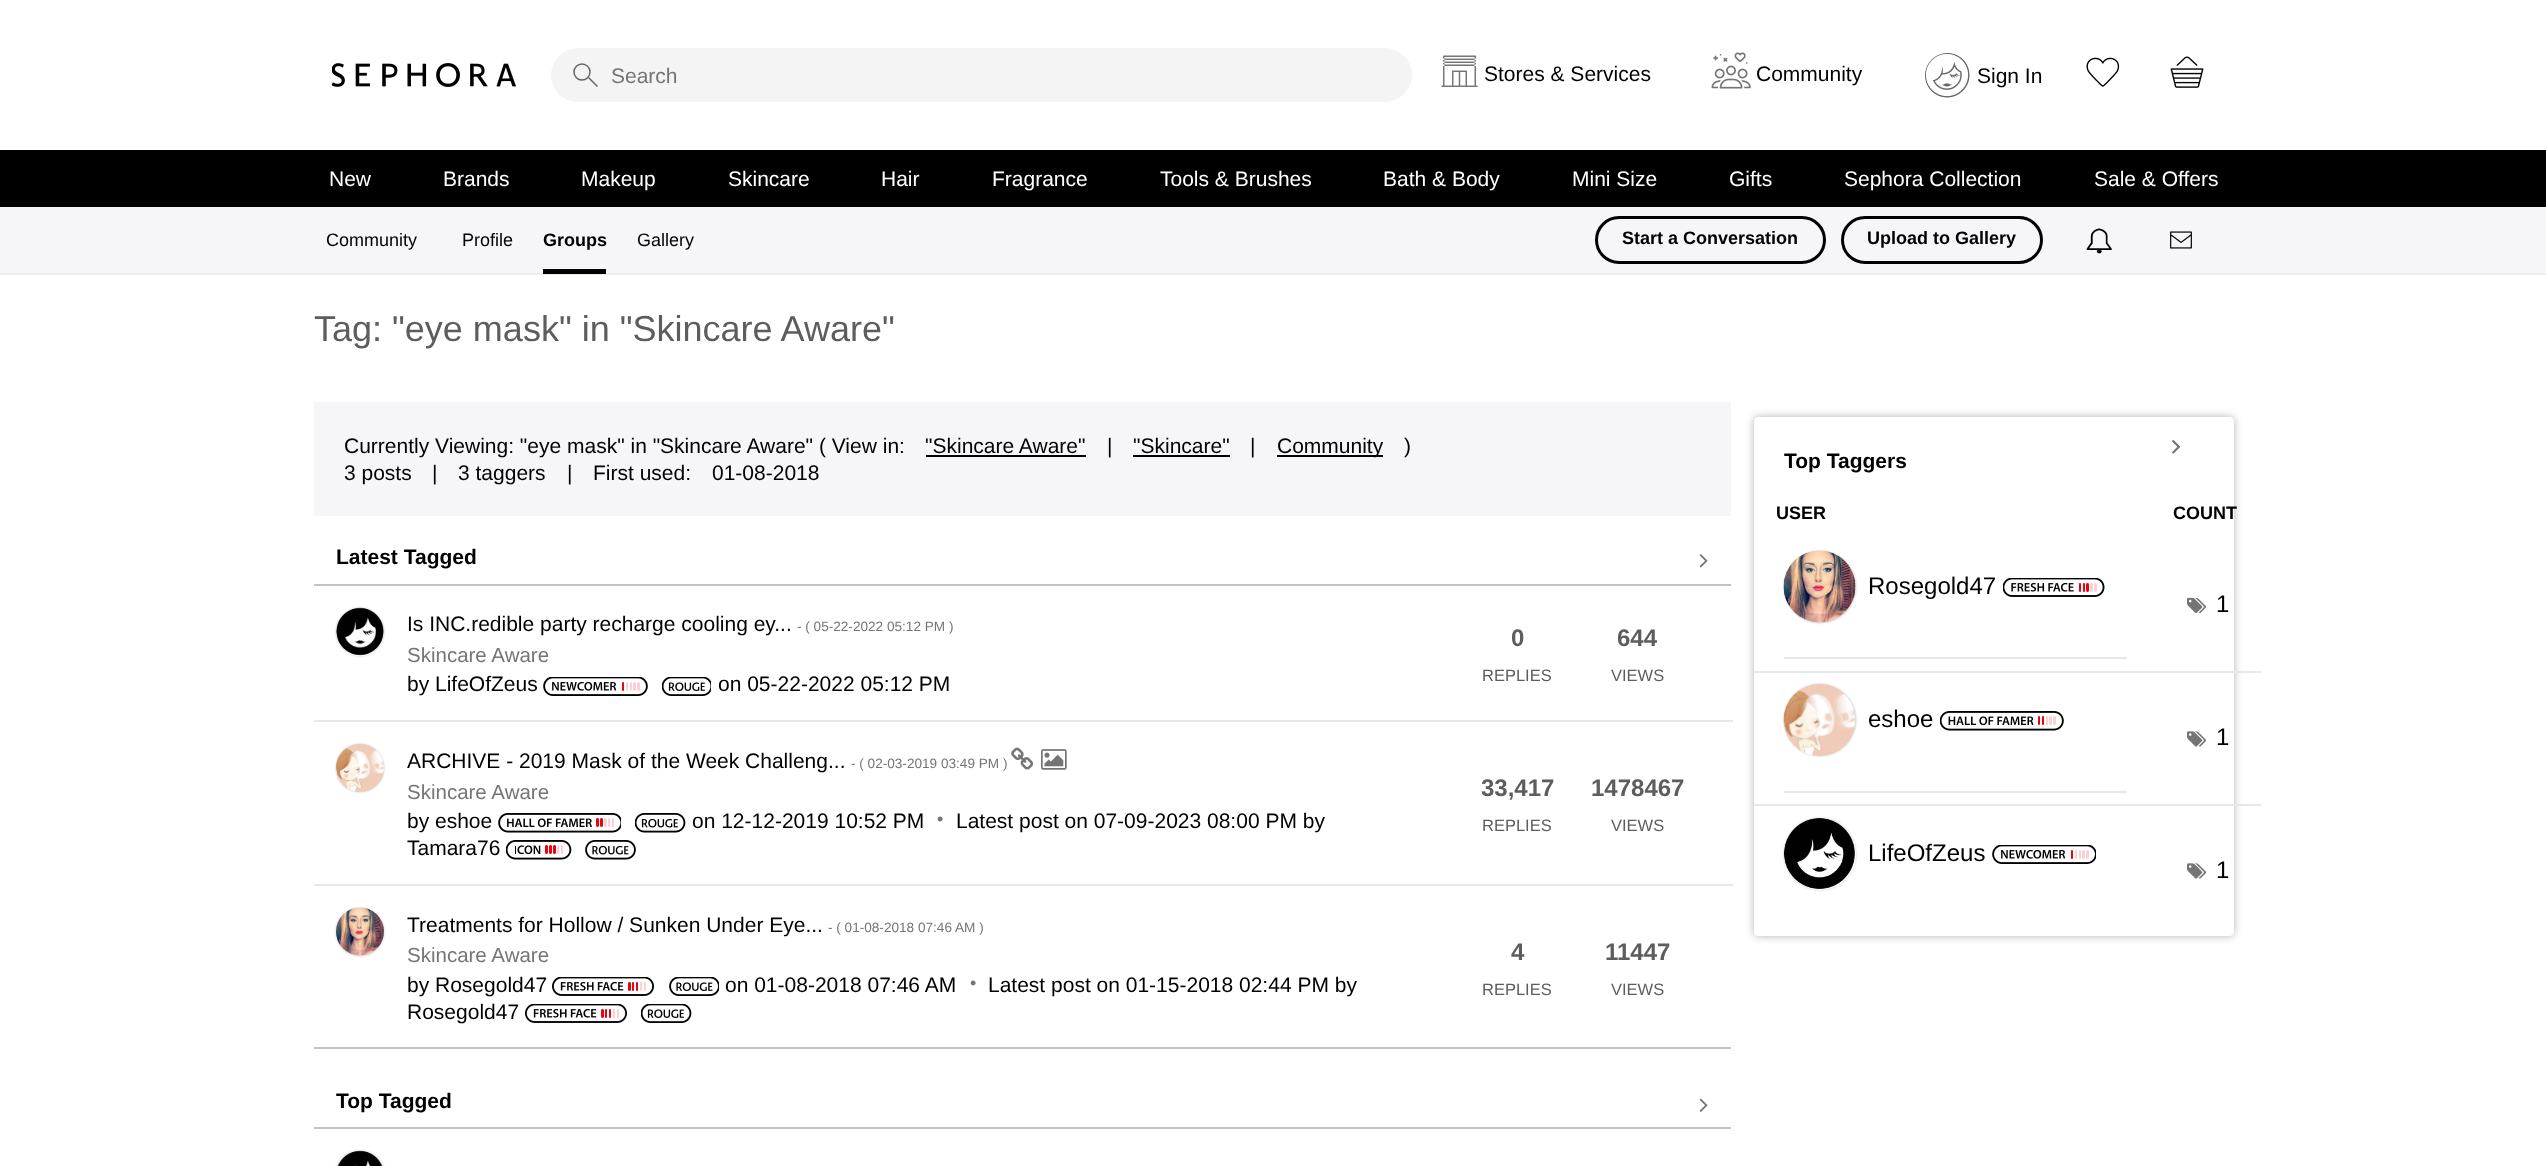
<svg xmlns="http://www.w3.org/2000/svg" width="2546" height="1166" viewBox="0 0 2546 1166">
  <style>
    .t1 { font: 21px Liberation Sans; fill: #757575; }
    .t2 { font: 21px Liberation Sans; fill: #000; }
    .t3 { font: 21px Liberation Sans; fill: #fff; }
    .t4 { font: 18px Liberation Sans; fill: #000; }
    .t5 { font: bold 18px Liberation Sans; fill: #000; }
    .t6 { font: 36px Liberation Sans; fill: #5d5d5d; }
    .t7 { font: bold 21px Liberation Sans; fill: #000; }
    .t8 { font: 13.6px Liberation Sans; fill: #757575; }
    .t9 { font: 20.5px Liberation Sans; fill: #757575; }
    .t10 { font: bold 24px Liberation Sans; fill: #5d5d5d; }
    .t11 { font: 16.5px Liberation Sans; fill: #5d5d5d; }
    .t12 { font: 18px Liberation Sans; fill: #757575; }
    .t13 { font: 24px Liberation Sans; fill: #000; }
  </style>
  <defs>
    <clipPath id="clip1"><path d="M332 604H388V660H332ZM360 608C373.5 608 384 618.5 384 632C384 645.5 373.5 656 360 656C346.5 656 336 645.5 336 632C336 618.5 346.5 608 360 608Z" clip-rule="evenodd"/></clipPath>
    <clipPath id="clip2"><path d="M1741 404H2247V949H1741ZM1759 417H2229C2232 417 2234 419 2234 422V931C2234 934 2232 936 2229 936H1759C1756 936 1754 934 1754 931V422C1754 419 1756 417 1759 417Z" clip-rule="evenodd"/></clipPath>
    <clipPath id="clip3"><path d="M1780 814H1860V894H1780ZM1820 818C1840 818 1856 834 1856 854C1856 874 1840 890 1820 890C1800 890 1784 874 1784 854C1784 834 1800 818 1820 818Z" clip-rule="evenodd"/></clipPath>
  </defs>
  <rect width="100%" height="100%" fill="#fff"/>
  <image x="332" y="63" width="184" height="24" href="images/1.png"/>
  <rect x="551" y="48" width="861" height="54" rx="27" fill="#f4f4f4"/>
  <circle cx="582" cy="72" r="8" fill="none" stroke="#666" stroke-width="1.5"/>
  <path d="M588.5 77.5L597.5 86.5" fill="none" stroke="#666" stroke-width="1.5"/>
  <text x="611" y="83" class="t1">Search</text>
  <image x="1441" y="55" width="37" height="32" href="images/2.png"/>
  <text x="1484" y="81" class="t2">Stores &amp; Services</text>
  <image x="1711" y="52" width="40" height="37" href="images/3.png"/>
  <text x="1756" y="81" class="t2">Community</text>
  <image x="1925" y="53" width="45" height="45" href="images/4.png"/>
  <text x="1977" y="83" class="t2">Sign In</text>
  <image x="2086" y="57" width="34" height="30" href="images/5.png"/>
  <image x="2170" y="56" width="34" height="32" href="images/6.png"/>
  <rect x="0" y="150" width="2546" height="57" fill="#000"/>
  <text x="329" y="186" class="t3">New</text>
  <text x="443" y="186" class="t3">Brands</text>
  <text x="581" y="186" class="t3">Makeup</text>
  <text x="728" y="186" class="t3">Skincare</text>
  <text x="881" y="186" class="t3">Hair</text>
  <text x="992" y="186" class="t3">Fragrance</text>
  <text x="1160" y="186" class="t3">Tools &amp; Brushes</text>
  <text x="1383" y="186" class="t3">Bath &amp; Body</text>
  <text x="1572" y="186" class="t3">Mini Size</text>
  <text x="1729" y="186" class="t3">Gifts</text>
  <text x="1844" y="186" class="t3">Sephora Collection</text>
  <text x="2094" y="186" class="t3">Sale &amp; Offers</text>
  <rect x="0" y="273" width="2546" height="2" fill="#eee"/>
  <rect x="0" y="207" width="2546" height="66" fill="#f6f6f8"/>
  <text x="326" y="246" class="t4">Community</text>
  <text x="462" y="246" class="t4">Profile</text>
  <rect x="543" y="269" width="63" height="5" fill="#000"/>
  <text x="543" y="246" class="t5">Groups</text>
  <text x="637" y="246" class="t4">Gallery</text>
  <rect x="1596.5" y="217.5" width="228" height="45" rx="22.5" fill="none" stroke="#000" stroke-width="3"/>
  <text x="1622" y="244" class="t5">Start a Conversation</text>
  <rect x="1842.5" y="217.5" width="199" height="45" rx="22.5" fill="none" stroke="#000" stroke-width="3"/>
  <text x="1867" y="244" class="t5">Upload to Gallery</text>
  <image x="2086" y="228" width="26" height="26" href="images/7.png"/>
  <image x="2170" y="231" width="22" height="18" href="images/8.png"/>
  <text x="314" y="341" class="t6">Tag: "eye mask" in "Skincare Aware"</text>
  <rect x="314" y="402" width="1417" height="114" fill="#f6f6f8"/>
  <text x="344" y="453" class="t2">Currently Viewing: "eye mask" in "Skincare Aware" ( View in:</text>
  <text x="925" y="453" class="t2">"Skincare Aware"</text>
  <rect x="926" y="455" width="160" height="2" fill="#000"/>
  <text x="1107" y="453" class="t2">|</text>
  <text x="1133" y="453" class="t2">"Skincare"</text>
  <rect x="1133" y="455" width="97" height="2" fill="#000"/>
  <text x="1250" y="453" class="t2">|</text>
  <rect x="1277" y="455" width="106" height="2" fill="#000"/>
  <text x="1277" y="453" class="t2">Community</text>
  <text x="1404" y="453" class="t2">)</text>
  <text x="344" y="480" class="t2">3 posts</text>
  <text x="432" y="480" class="t2">|</text>
  <text x="458" y="480" class="t2">3 taggers</text>
  <text x="567" y="480" class="t2">|</text>
  <text x="593" y="480" class="t2">First used:</text>
  <text x="712" y="480" class="t2">01-08-2018</text>
  <rect x="314" y="584" width="1417" height="2" fill="#c4c4c4"/>
  <text x="336" y="564" class="t7">Latest Tagged</text>
  <image x="1699" y="554" width="9" height="14" href="images/9.png"/>
  <rect x="314" y="1047" width="1417" height="2" fill="#c4c4c4"/>
  <g clip-path="url(#clip1)">
    <rect x="336" y="608" width="48" height="48" rx="24" fill="#c4c4c4" filter="blur(1px)"/>
  </g>
  <image x="336" y="607" width="48" height="49" href="images/10.png"/>
  <text x="407" y="631" class="t2">Is INC.redible party recharge cooling ey...</text>
  <text x="797" y="631" class="t8">- ( 05-22-2022 05:12 PM )</text>
  <text x="407" y="662" class="t9">Skincare Aware</text>
  <text x="407" y="691" class="t2">by LifeOfZeus</text>
  <image x="543" y="677" width="105" height="19" href="images/11.png"/>
  <image x="662" y="677" width="49" height="19" href="images/12.png"/>
  <text x="718" y="691" class="t2">on 05-22-2022 05:12 PM</text>
  <text x="1511" y="646" class="t10">0</text>
  <text x="1482" y="681" class="t11">REPLIES</text>
  <text x="1617" y="646" class="t10">644</text>
  <text x="1611" y="681" class="t11">VIEWS</text>
  <rect x="314" y="720" width="1419" height="2" fill="#e8e8e8"/>
  <rect x="336" y="744" width="48" height="48" rx="24" fill="#c4c4c4" filter="blur(1px)"/>
  <image x="336" y="744" width="48" height="48" href="images/13.png"/>
  <text x="407" y="768" class="t2">ARCHIVE - 2019 Mask of the Week Challeng...</text>
  <text x="851" y="768" class="t8">- ( 02-03-2019 03:49 PM )</text>
  <image x="1011" y="747" width="22" height="23" href="images/14.png"/>
  <image x="1041" y="749" width="26" height="21" href="images/15.png"/>
  <text x="407" y="799" class="t9">Skincare Aware</text>
  <text x="407" y="828" class="t2">by eshoe</text>
  <image x="498" y="813" width="123" height="20" href="images/16.png"/>
  <image x="635" y="813" width="51" height="20" href="images/17.png"/>
  <text x="692" y="828" class="t2">on 12-12-2019 10:52 PM</text>
  <text x="937" y="825" class="t12">•</text>
  <text x="956" y="828" class="t2">Latest post on 07-09-2023 08:00 PM by</text>
  <text x="407" y="855" class="t2">Tamara76</text>
  <image x="506" y="840" width="66" height="20" href="images/18.png"/>
  <image x="585" y="840" width="51" height="20" href="images/19.png"/>
  <text x="1481" y="796" class="t10">33,417</text>
  <text x="1482" y="831" class="t11">REPLIES</text>
  <text x="1591" y="796" class="t10">1478467</text>
  <text x="1611" y="831" class="t11">VIEWS</text>
  <rect x="314" y="884" width="1419" height="2" fill="#e8e8e8"/>
  <rect x="336" y="908" width="48" height="48" rx="24" fill="#c4c4c4" filter="blur(1px)"/>
  <image x="336" y="907" width="48" height="49" href="images/20.png"/>
  <text x="407" y="932" class="t2">Treatments for Hollow / Sunken Under Eye...</text>
  <text x="828" y="932" class="t8">- ( 01-08-2018 07:46 AM )</text>
  <text x="407" y="962" class="t9">Skincare Aware</text>
  <text x="407" y="992" class="t2">by Rosegold47</text>
  <image x="552" y="977" width="102" height="19" href="images/21.png"/>
  <image x="669" y="977" width="50" height="19" href="images/22.png"/>
  <text x="725" y="992" class="t2">on 01-08-2018 07:46 AM</text>
  <text x="970" y="989" class="t12">•</text>
  <text x="988" y="992" class="t2">Latest post on 01-15-2018 02:44 PM by</text>
  <text x="407" y="1019" class="t2">Rosegold47</text>
  <image x="525" y="1004" width="102" height="19" href="images/21.png"/>
  <image x="641" y="1004" width="51" height="19" href="images/23.png"/>
  <text x="1511" y="960" class="t10">4</text>
  <text x="1482" y="995" class="t11">REPLIES</text>
  <text x="1605" y="960" class="t10">11447</text>
  <text x="1611" y="995" class="t11">VIEWS</text>
  <rect x="314" y="1127" width="1417" height="2" fill="#c4c4c4"/>
  <text x="336" y="1108" class="t7">Top Tagged</text>
  <image x="1699" y="1098" width="9" height="14" href="images/24.png"/>
  <rect x="336" y="1151" width="48" height="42" rx="24" fill="#c4c4c4" filter="blur(1px)"/>
  <image x="337" y="1150" width="45" height="16" href="images/25.png"/>
  <g clip-path="url(#clip2)">
    <rect x="1754" y="417" width="480" height="519" rx="5" fill="#b1b1b1" filter="blur(4px)"/>
  </g>
  <text x="1784" y="468" class="t7">Top Taggers</text>
  <image x="2172" y="440" width="8" height="14" href="images/26.png"/>
  <image x="2172" y="440" width="8" height="14" href="images/27.png"/>
  <text x="1776" y="519" class="t5">USER</text>
  <text x="2173" y="519" class="t5">COUNT</text>
  <rect x="1784" y="657" width="343" height="2" fill="#e8e8e8"/>
  <rect x="1784" y="551" width="72" height="72" rx="36" fill="#c4c4c4" filter="blur(1px)"/>
  <image x="1783" y="550" width="73" height="73" href="images/28.png"/>
  <text x="1868" y="594" class="t13">Rosegold47</text>
  <image x="2003" y="578" width="102" height="19" href="images/29.png"/>
  <image x="2187" y="597" width="19" height="16" href="images/30.png"/>
  <text x="2216" y="612" class="t13">1</text>
  <rect x="1754" y="671" width="507" height="2" fill="#e8e8e8"/>
  <rect x="1784" y="791" width="343" height="2" fill="#e8e8e8"/>
  <rect x="1784" y="684" width="72" height="72" rx="36" fill="#c4c4c4" filter="blur(1px)"/>
  <image x="1783" y="684" width="73" height="72" href="images/31.png"/>
  <text x="1868" y="727" class="t13">eshoe</text>
  <image x="1940" y="711" width="124" height="20" href="images/32.png"/>
  <image x="2187" y="731" width="19" height="16" href="images/33.png"/>
  <text x="2216" y="745" class="t13">1</text>
  <rect x="1754" y="804" width="507" height="2" fill="#e8e8e8"/>
  <g clip-path="url(#clip3)">
    <rect x="1784" y="818" width="72" height="72" rx="36" fill="#c4c4c4" filter="blur(1px)"/>
  </g>
  <image x="1783" y="818" width="72" height="71" href="images/34.png"/>
  <text x="1868" y="861" class="t13">LifeOfZeus</text>
  <image x="1992" y="845" width="104" height="19" href="images/35.png"/>
  <image x="2187" y="863" width="19" height="16" href="images/33.png"/>
  <text x="2216" y="878" class="t13">1</text>
</svg>
